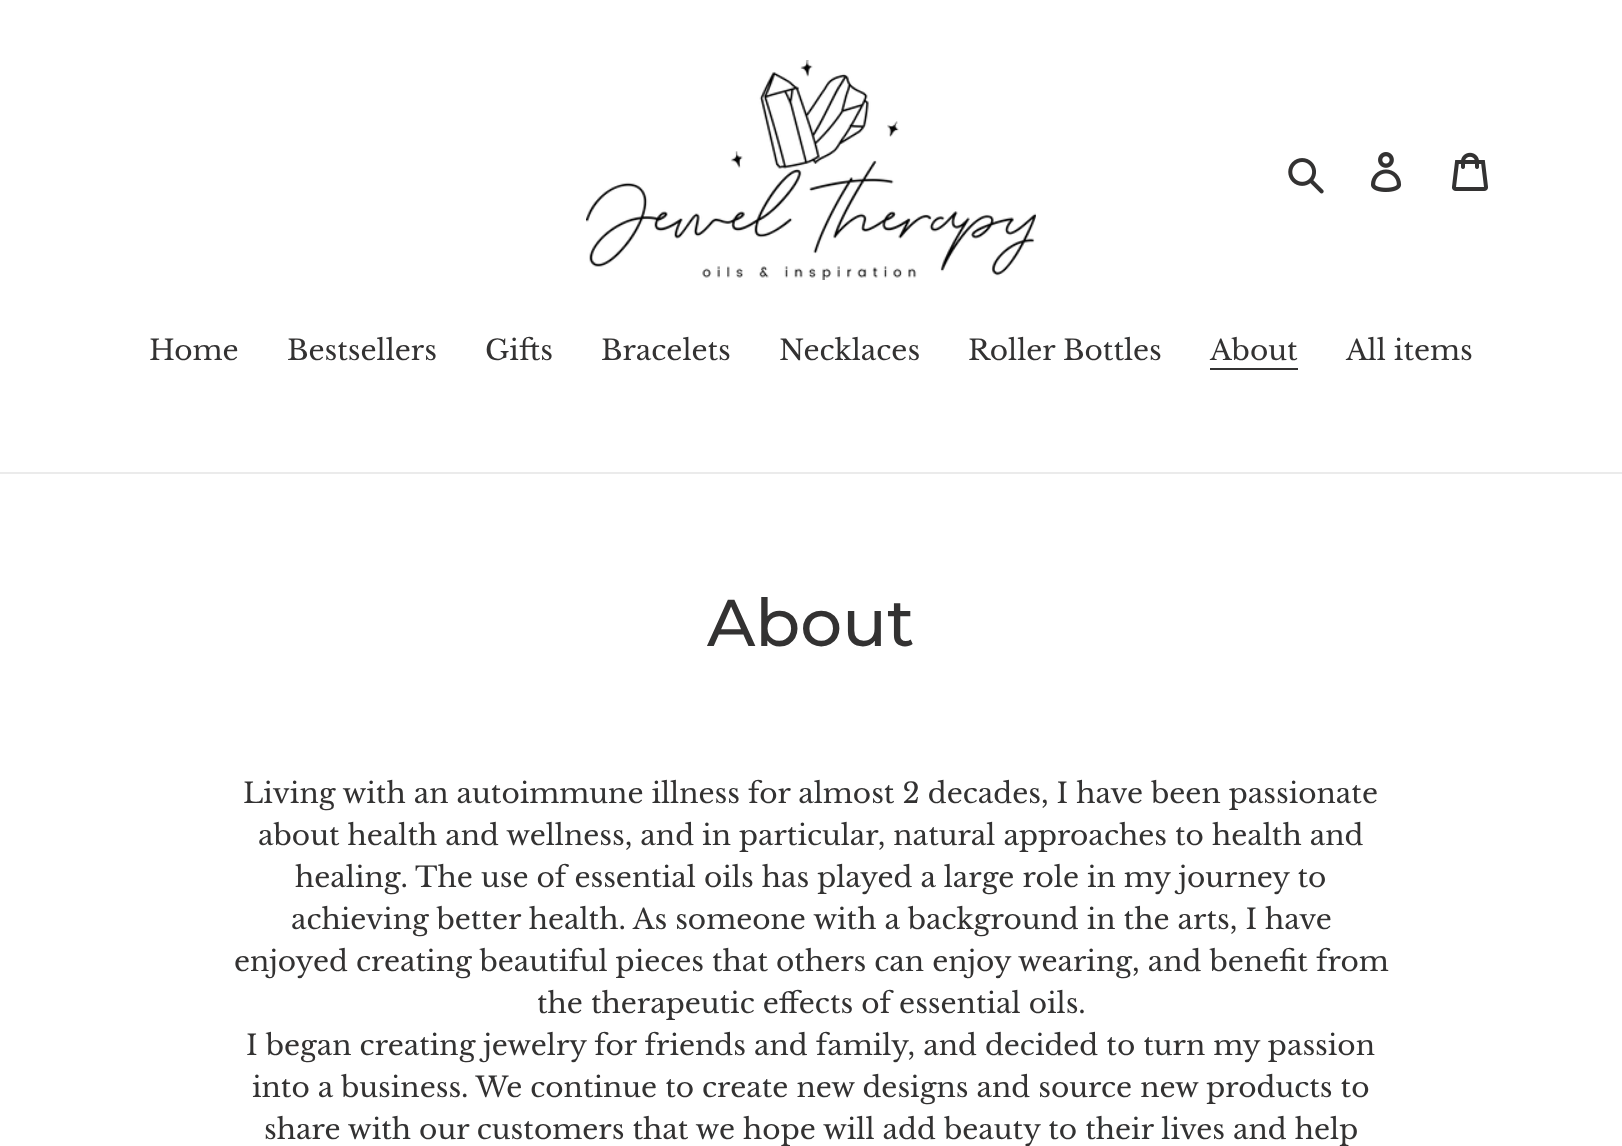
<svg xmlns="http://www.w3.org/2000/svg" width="1622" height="1146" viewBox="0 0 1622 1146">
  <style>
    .t1 { font: 28px Libre Baskerville; fill: #333232; }
    .t2 { font: 500 66px Montserrat; fill: #333232; }
  </style>
  <rect width="100%" height="100%" fill="#fff"/>
  <image x="586" y="60" width="450" height="220" href="images/1.png"/>
  <image x="1288" y="158" width="36" height="36" href="images/2.png"/>
  <image x="1371" y="152" width="31" height="40" href="images/3.png"/>
  <image x="1452" y="152" width="36" height="39" href="images/4.png"/>
  <rect x="0" y="472" width="1622" height="2" fill="#ebebeb"/>
  <text x="149" y="360" class="t1">Home</text>
  <text x="287" y="360" class="t1">Bestsellers</text>
  <text x="485" y="360" class="t1">Gifts</text>
  <text x="601" y="360" class="t1">Bracelets</text>
  <text x="779" y="360" class="t1">Necklaces</text>
  <text x="968" y="360" class="t1">Roller Bottles</text>
  <text x="1210" y="360" class="t1">About</text>
  <rect x="1210" y="368" width="88" height="2" fill="#333232"/>
  <text x="1346" y="360" class="t1">All items</text>
  <text x="707" y="646" class="t2">About</text>
  <text x="243" y="803" class="t1">Living with an autoimmune illness for almost 2 decades, I have been passionate</text>
  <text x="258" y="845" class="t1">about health and wellness, and in particular, natural approaches to health and</text>
  <text x="295" y="887" class="t1">healing. The use of essential oils has played a large role in my journey to</text>
  <text x="291" y="929" class="t1">achieving better health. As someone with a background in the arts, I have</text>
  <text x="234" y="971" class="t1">enjoyed creating beautiful pieces that others can enjoy wearing, and benefit from</text>
  <text x="537" y="1013" class="t1">the therapeutic effects of essential oils.</text>
  <text x="246" y="1055" class="t1">I began creating jewelry for friends and family, and decided to turn my passion</text>
  <text x="252" y="1097" class="t1">into a business. We continue to create new designs and source new products to</text>
  <text x="264" y="1139" class="t1">share with our customers that we hope will add beauty to their lives and help</text>
</svg>
